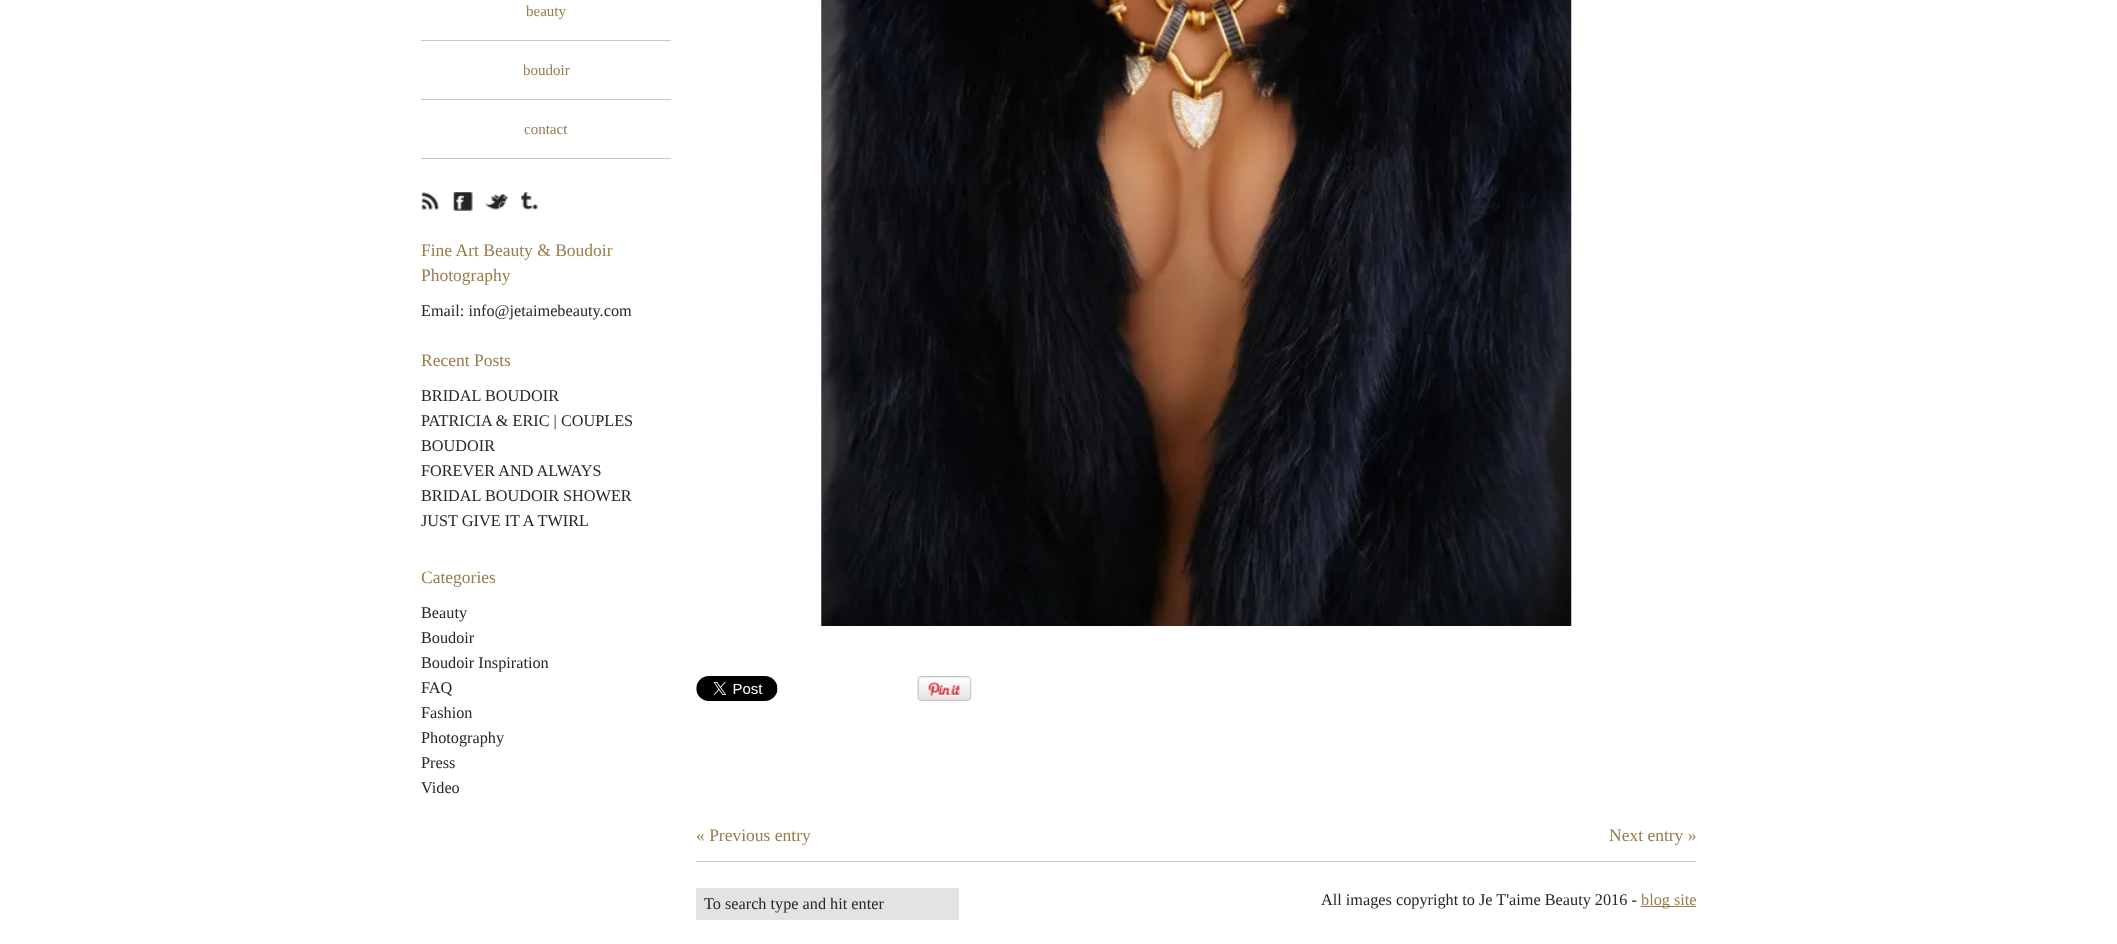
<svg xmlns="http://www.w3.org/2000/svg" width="2117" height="944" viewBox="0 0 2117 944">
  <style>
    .t1 { font: 15px Liberation Serif; fill: #987c4c; }
    .t2 { font: 17.5px Liberation Serif; fill: #987c4c; }
    .t3 { font: 16.25px Liberation Serif; fill: #282623; }
    .t4 { font: 16.25px Liberation Serif; fill: #987c4c; }
  </style>
  <rect width="100%" height="100%" fill="#fff"/>
  <rect x="421" y="40" width="250" height="1" fill="#c8c8c8"/>
  <text x="526" y="16" class="t1">beauty</text>
  <rect x="421" y="99" width="250" height="1" fill="#c8c8c8"/>
  <text x="523" y="75" class="t1">boudoir</text>
  <rect x="421" y="158" width="250" height="1" fill="#c8c8c8"/>
  <text x="524" y="134" class="t1">contact</text>
  <image x="421" y="192" width="18" height="18" href="images/1.png"/>
  <image x="453" y="192" width="20" height="19" href="images/2.png"/>
  <image x="485" y="193" width="24" height="17" href="images/3.png"/>
  <image x="521" y="192" width="17" height="18" href="images/4.png"/>
  <text x="421" y="256" class="t2">Fine Art Beauty &amp; Boudoir</text>
  <text x="421" y="281" class="t2">Photography</text>
  <text x="421" y="316" class="t3">Email: info@jetaimebeauty.com</text>
  <text x="421" y="366" class="t2">Recent Posts</text>
  <text x="421" y="401" class="t3">BRIDAL BOUDOIR</text>
  <text x="421" y="426" class="t3">PATRICIA &amp; ERIC | COUPLES</text>
  <text x="421" y="451" class="t3">BOUDOIR</text>
  <text x="421" y="476" class="t3">FOREVER AND ALWAYS</text>
  <text x="421" y="501" class="t3">BRIDAL BOUDOIR SHOWER</text>
  <text x="421" y="526" class="t3">JUST GIVE IT A TWIRL</text>
  <text x="421" y="583" class="t2">Categories</text>
  <text x="421" y="618" class="t3">Beauty</text>
  <text x="421" y="643" class="t3">Boudoir</text>
  <text x="421" y="668" class="t3">Boudoir Inspiration</text>
  <text x="421" y="693" class="t3">FAQ</text>
  <text x="421" y="718" class="t3">Fashion</text>
  <text x="421" y="743" class="t3">Photography</text>
  <text x="421" y="768" class="t3">Press</text>
  <text x="421" y="793" class="t3">Video</text>
  <image x="821" y="0" width="751" height="626" href="images/5.png"/>
  <image x="696" y="676" width="82" height="25" href="images/6.png"/>
  <image x="917" y="676" width="55" height="25" href="images/7.png"/>
  <text x="696" y="841" class="t2">« Previous entry</text>
  <text x="1609" y="841" class="t2">Next entry »</text>
  <rect x="696" y="861" width="1000" height="1" fill="#c8c8c8"/>
  <rect x="696" y="888" width="263" height="32" fill="#e3e3e3"/>
  <text x="704" y="909" class="t3">To search type and hit enter</text>
  <text x="1321" y="905" class="t3">All images copyright to Je T'aime Beauty 2016 -</text>
  <rect x="1641" y="906" width="55" height="1" fill="#987c4c"/>
  <text x="1641" y="905" class="t4">blog site</text>
</svg>
